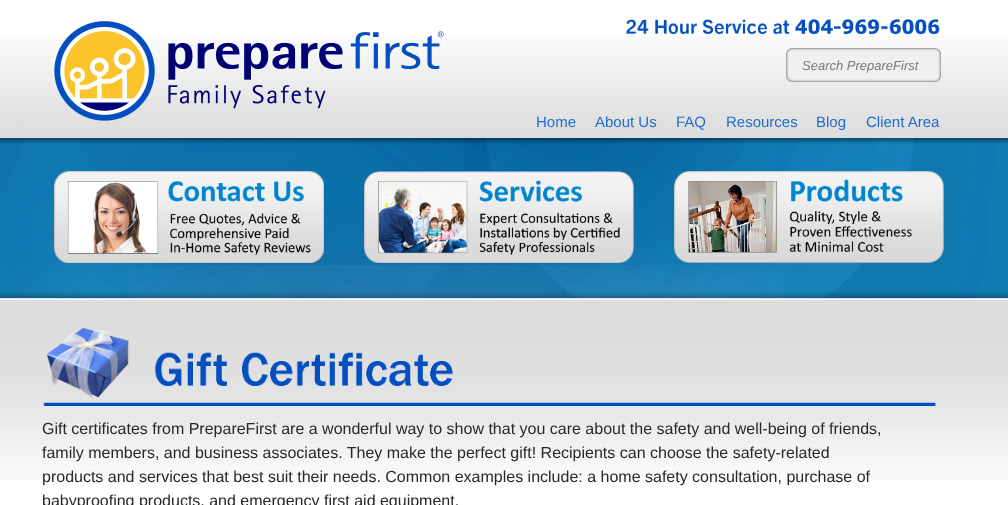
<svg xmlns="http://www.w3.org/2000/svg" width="1008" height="505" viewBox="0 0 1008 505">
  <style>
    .t1 { font: italic 13px Liberation Sans; fill: #797979; }
    .t2 { font: 15px Liberation Sans; fill: #1e6dca; }
    .t3 { font: 16px Liberation Sans; fill: #282828; }
  </style>
  <rect width="100%" height="100%" fill="#fff"/>
  <image x="0" y="299" width="1008" height="181" href="images/1.png"/>
  <image x="0" y="36" width="1008" height="263" href="images/2.png"/>
  <image x="18" y="36" width="971" height="263" href="images/3.png"/>
  <image x="54" y="21" width="390" height="100" href="images/4.png"/>
  <image x="626" y="19" width="314" height="16" href="images/5.png"/>
  <image x="786" y="48" width="9" height="34" href="images/6.png"/>
  <image x="795" y="48" width="137" height="34" href="images/7.png"/>
  <text x="802" y="70" class="t1">Search PrepareFirst</text>
  <image x="932" y="48" width="9" height="34" href="images/8.png"/>
  <text x="536" y="127" class="t2">Home</text>
  <text x="595" y="127" class="t2">About Us</text>
  <text x="676" y="127" class="t2">FAQ</text>
  <text x="726" y="127" class="t2">Resources</text>
  <text x="816" y="127" class="t2">Blog</text>
  <text x="866" y="127" class="t2">Client Area</text>
  <image x="54" y="171" width="270" height="92" href="images/9.png"/>
  <image x="364" y="171" width="270" height="92" href="images/10.png"/>
  <image x="674" y="171" width="270" height="92" href="images/11.png"/>
  <image x="128" y="265" width="656" height="33" href="images/12.png"/>
  <image x="43" y="327" width="893" height="79" href="images/13.png"/>
  <text x="42" y="434" class="t3">Gift certificates from PrepareFirst are a wonderful way to show that you care about the safety and well-being of friends,</text>
  <text x="42" y="458" class="t3">family members, and business associates. They make the perfect gift! Recipients can choose the safety-related</text>
  <text x="42" y="482" class="t3">products and services that best suit their needs. Common examples include: a home safety consultation, purchase of</text>
  <text x="42" y="506" class="t3">babyproofing products, and emergency first aid equipment.</text>
</svg>
